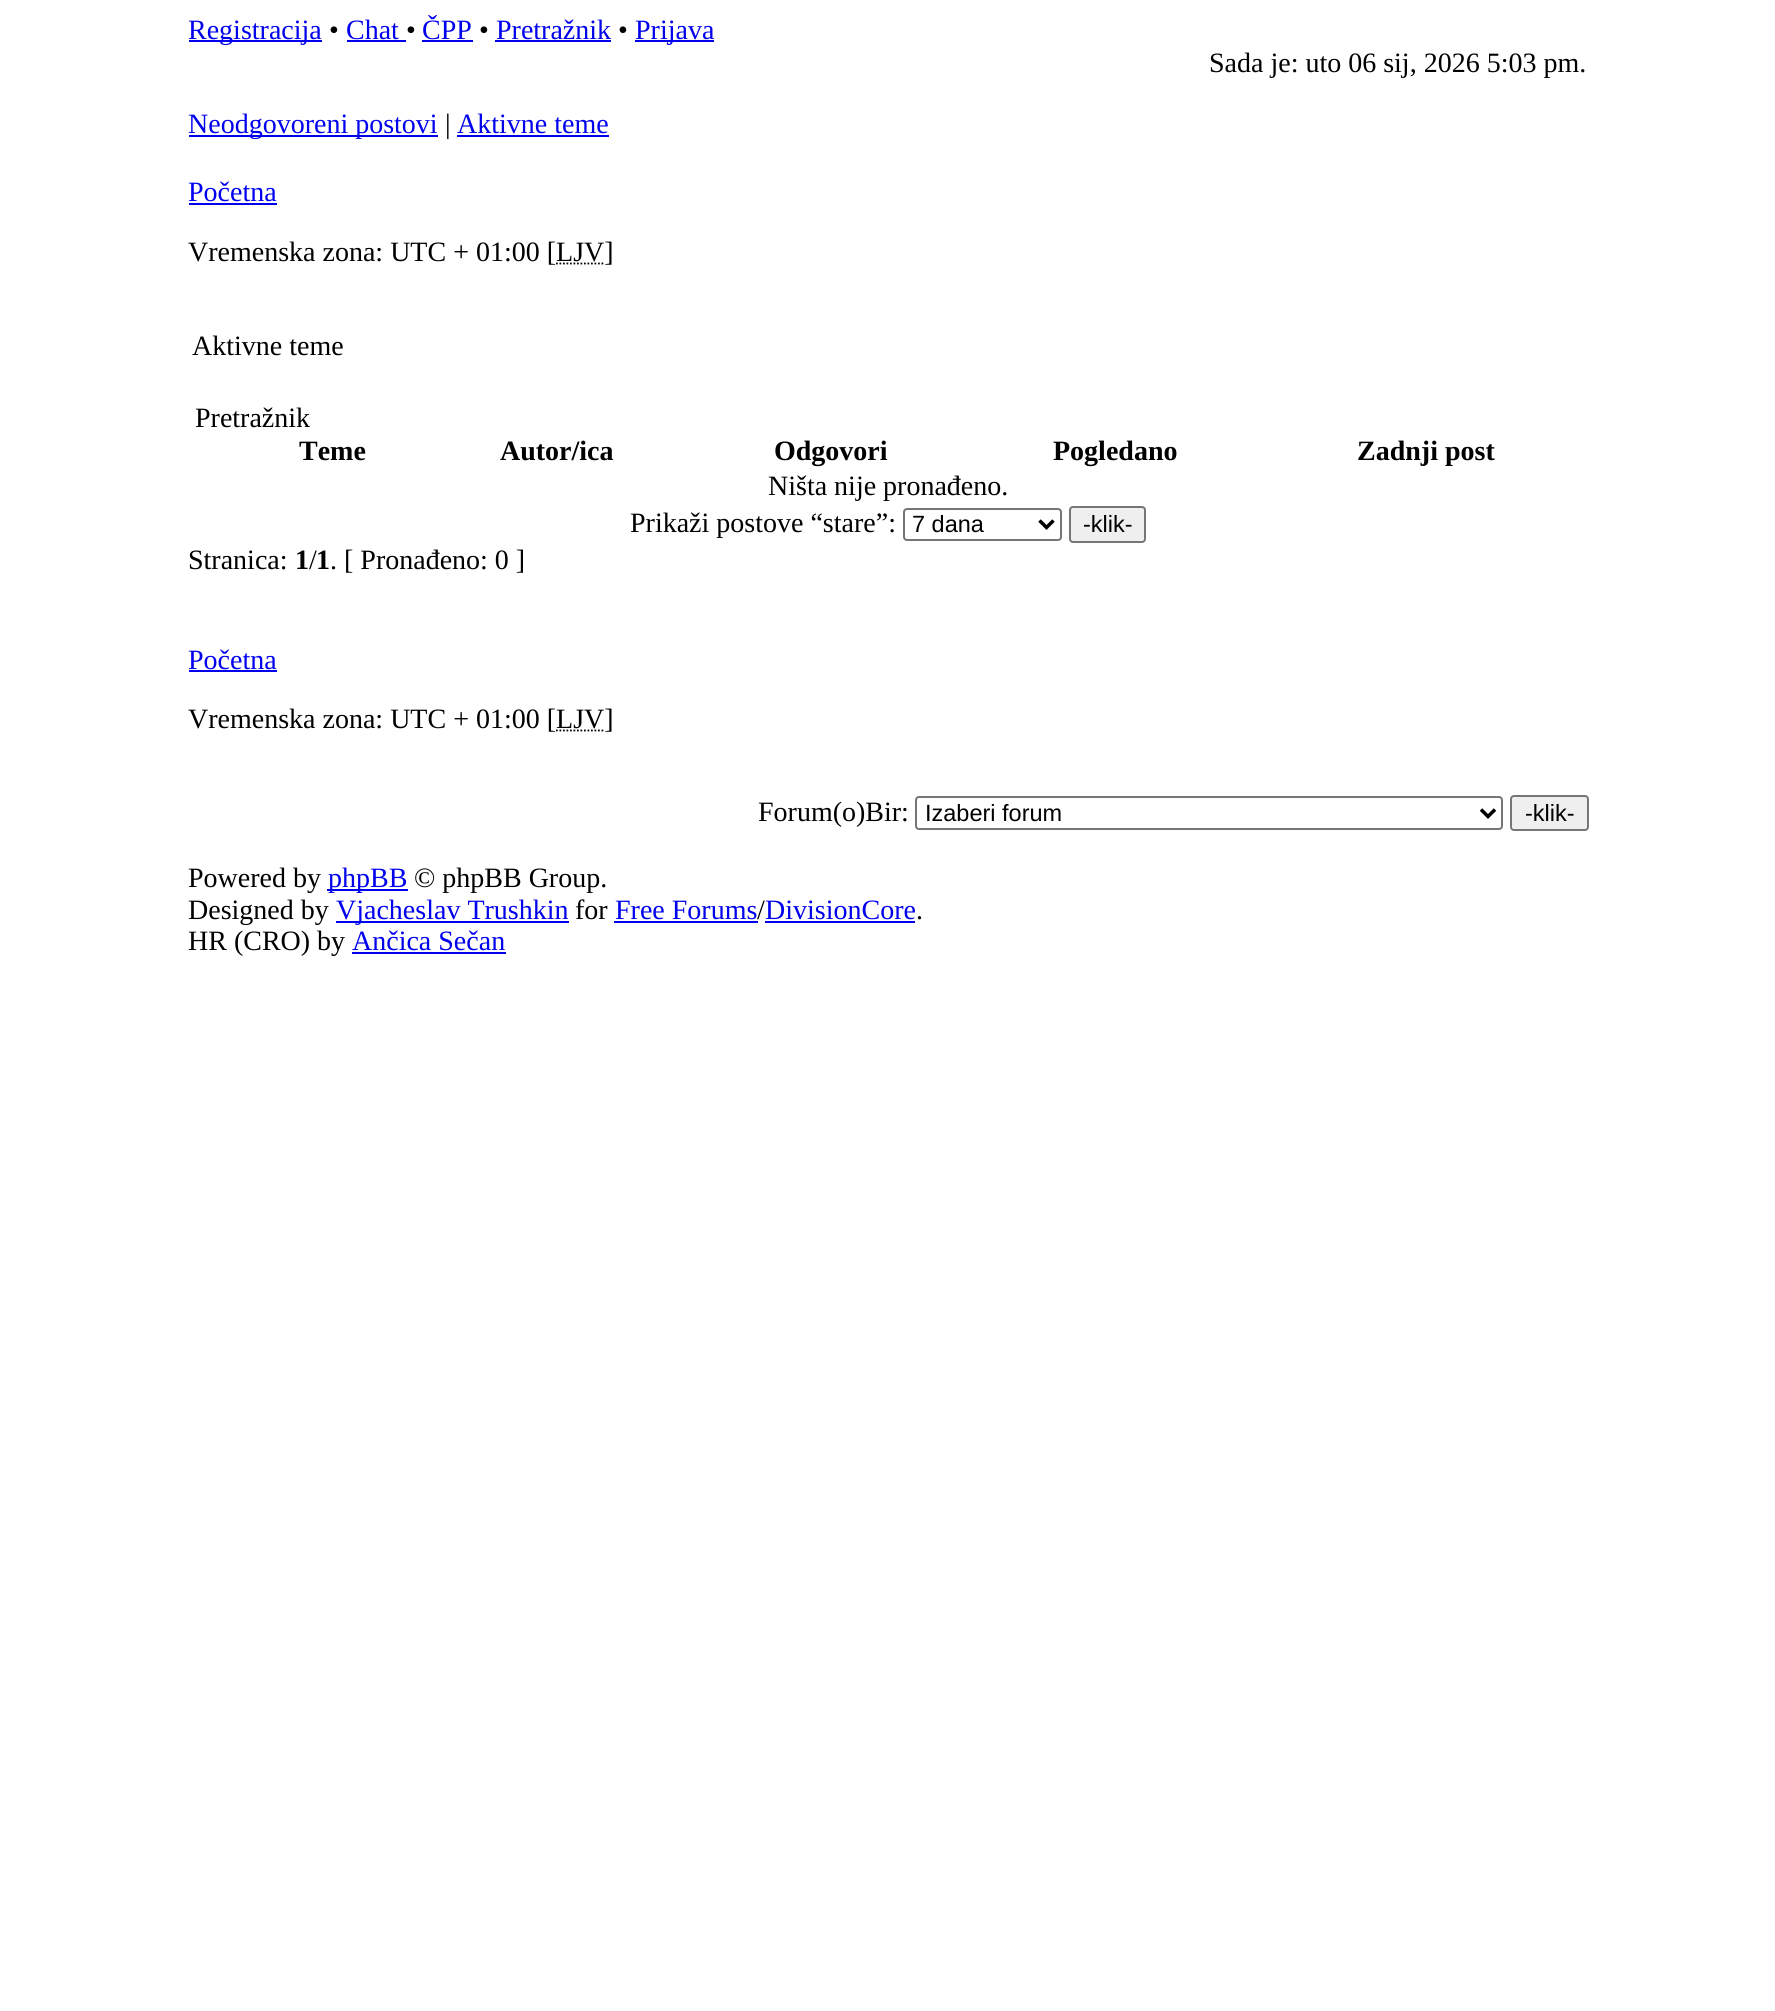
#include <cairo/cairo.h>
#include <math.h>
#include <stddef.h>

typedef struct { double x, y; const char *s; } line_t;
typedef struct { double x, y, w, h; unsigned color; } box_t;
static cairo_t *cr;

static void rgb(unsigned color)
{
	cairo_set_source_rgb(cr, (color >> 16) / 255.0, (color >> 8 & 255) / 255.0, (color & 255) / 255.0);
}

static void rrect(double x, double y, double w, double h, double r)
{
	cairo_new_sub_path(cr);
	cairo_arc(cr, x + w - r, y + h - r, r, 0, M_PI / 2);
	cairo_arc(cr, x + r, y + h - r, r, M_PI / 2, M_PI);
	cairo_arc(cr, x + r, y + r, r, M_PI, 1.5 * M_PI);
	cairo_arc(cr, x + w - r, y + r, r, 1.5 * M_PI, 2 * M_PI);
	cairo_close_path(cr);
}

int main(void) {
	cairo_surface_t *surface = cairo_image_surface_create(CAIRO_FORMAT_RGB24, 1775, 2011);
	cr = cairo_create(surface);
	cairo_font_options_t *options = cairo_font_options_create();
	cairo_font_options_set_hint_metrics(options, CAIRO_HINT_METRICS_OFF);
	cairo_font_options_set_hint_style(options, CAIRO_HINT_STYLE_NONE);
	cairo_set_font_options(cr, options);
	cairo_set_miter_limit(cr, 4);
	rgb(0xffffff);
	cairo_paint(cr);
	{
		static const box_t items[] = {
			{189, 40, 133, 2, 0x0000ee},
			{347, 40, 59, 2, 0x0000ee},
			{422, 40, 51, 2, 0x0000ee},
			{495, 40, 116, 2, 0x0000ee},
			{635, 40, 79, 2, 0x0000ee},
			{189, 135, 249, 2, 0x0000ee},
			{457, 135, 152, 2, 0x0000ee},
			{189, 203, 88, 2, 0x0000ee},
		};
		for (size_t i = 0; i < sizeof items / sizeof *items; i++) {
			rgb(items[i].color);
			cairo_rectangle(cr, items[i].x, items[i].y, items[i].w, items[i].h);
			cairo_fill(cr);
		}
	}
	cairo_new_path(cr);
	cairo_move_to(cr, 556, 263.5);
	cairo_line_to(cr, 604.5, 263.5);
	rgb(0x000000);
	cairo_set_line_width(cr, 1.8);
	cairo_set_dash(cr, (double[]){1.75, 1.75}, 2, 0);
	cairo_stroke(cr);
	rrect(904, 509, 157, 31, 3);
	rgb(0x767676);
	cairo_set_line_width(cr, 2);
	cairo_set_dash(cr, NULL, 0, 0);
	cairo_stroke(cr);
	cairo_new_path(cr);
	cairo_move_to(cr, 1039.5, 520.5);
	cairo_line_to(cr, 1046.5, 527.5);
	cairo_line_to(cr, 1053.5, 520.5);
	rgb(0x000000);
	cairo_set_line_width(cr, 3.5);
	cairo_stroke(cr);
	rgb(0xefefef);
	rrect(1070, 507, 75, 35, 3);
	cairo_fill_preserve(cr);
	rgb(0x767676);
	cairo_set_line_width(cr, 2);
	cairo_stroke(cr);
	rgb(0x0000ee);
	cairo_rectangle(cr, 189, 670, 88, 2);
	cairo_fill(cr);
	cairo_new_path(cr);
	cairo_move_to(cr, 556, 730.5);
	cairo_line_to(cr, 604.5, 730.5);
	rgb(0x000000);
	cairo_set_line_width(cr, 1.8);
	cairo_set_dash(cr, (double[]){1.75, 1.75}, 2, 0);
	cairo_stroke(cr);
	rrect(916, 797, 586, 32, 3);
	rgb(0x767676);
	cairo_set_line_width(cr, 2);
	cairo_set_dash(cr, NULL, 0, 0);
	cairo_stroke(cr);
	cairo_new_path(cr);
	cairo_move_to(cr, 1481, 809.5);
	cairo_line_to(cr, 1488, 816.5);
	cairo_line_to(cr, 1495, 809.5);
	rgb(0x000000);
	cairo_set_line_width(cr, 3.5);
	cairo_stroke(cr);
	rgb(0xefefef);
	rrect(1511, 796, 77, 34, 3);
	cairo_fill_preserve(cr);
	rgb(0x767676);
	cairo_set_line_width(cr, 2);
	cairo_stroke(cr);
	{
		static const box_t items[] = {
			{327, 889, 81, 2, 0x0000ee},
			{336, 921, 233, 2, 0x0000ee},
			{614, 921, 144, 2, 0x0000ee},
			{765, 921, 150, 2, 0x0000ee},
			{352, 952, 154, 2, 0x0000ee},
		};
		for (size_t i = 0; i < sizeof items / sizeof *items; i++) {
			rgb(items[i].color);
			cairo_rectangle(cr, items[i].x, items[i].y, items[i].w, items[i].h);
			cairo_fill(cr);
		}
	}
	cairo_select_font_face(cr, "Liberation Serif", CAIRO_FONT_SLANT_NORMAL, CAIRO_FONT_WEIGHT_NORMAL);
	cairo_set_font_size(cr, 28);
	cairo_move_to(cr, 188, 39);
	cairo_show_text(cr, "Registracija");
	rgb(0x000000);
	cairo_move_to(cr, 329, 39);
	cairo_show_text(cr, "•");
	rgb(0x0000ee);
	cairo_move_to(cr, 346, 39);
	cairo_show_text(cr, "Chat");
	rgb(0x000000);
	cairo_move_to(cr, 406, 39);
	cairo_show_text(cr, "•");
	rgb(0x0000ee);
	cairo_move_to(cr, 422, 39);
	cairo_show_text(cr, "ČPP");
	rgb(0x000000);
	cairo_move_to(cr, 479, 39);
	cairo_show_text(cr, "•");
	rgb(0x0000ee);
	cairo_move_to(cr, 496, 39);
	cairo_show_text(cr, "Pretražnik");
	rgb(0x000000);
	cairo_move_to(cr, 618, 39);
	cairo_show_text(cr, "•");
	rgb(0x0000ee);
	cairo_move_to(cr, 635, 39);
	cairo_show_text(cr, "Prijava");
	rgb(0x000000);
	cairo_move_to(cr, 1209, 72);
	cairo_show_text(cr, "Sada je: uto 06 sij, 2026 5:03 pm.");
	rgb(0x0000ee);
	cairo_move_to(cr, 188, 133);
	cairo_show_text(cr, "Neodgovoreni postovi");
	rgb(0x000000);
	cairo_move_to(cr, 445, 133);
	cairo_show_text(cr, "|");
	rgb(0x0000ee);
	cairo_move_to(cr, 457, 133);
	cairo_show_text(cr, "Aktivne teme");
	cairo_move_to(cr, 188, 201);
	cairo_show_text(cr, "Početna");
	rgb(0x000000);
	{
		static const line_t items[] = {
			{188, 261, "Vremenska zona: UTC + 01:00 [LJV]"},
			{192, 355, "Aktivne teme"},
			{195, 427, "Pretražnik"},
		};
		for (size_t i = 0; i < sizeof items / sizeof *items; i++) {
			cairo_move_to(cr, items[i].x, items[i].y);
			cairo_show_text(cr, items[i].s);
		}
	}
	cairo_select_font_face(cr, "Liberation Serif", CAIRO_FONT_SLANT_NORMAL, CAIRO_FONT_WEIGHT_BOLD);
	{
		static const line_t items[] = {
			{299, 460, "Teme"},
			{500, 460, "Autor/ica"},
			{774, 460, "Odgovori"},
			{1053, 460, "Pogledano"},
			{1357, 460, "Zadnji post"},
		};
		for (size_t i = 0; i < sizeof items / sizeof *items; i++) {
			cairo_move_to(cr, items[i].x, items[i].y);
			cairo_show_text(cr, items[i].s);
		}
	}
	cairo_select_font_face(cr, "Liberation Serif", CAIRO_FONT_SLANT_NORMAL, CAIRO_FONT_WEIGHT_NORMAL);
	cairo_move_to(cr, 768, 495);
	cairo_show_text(cr, "Ništa nije pronađeno.");
	cairo_move_to(cr, 630, 532);
	cairo_show_text(cr, "Prikaži postove “stare”:");
	cairo_select_font_face(cr, "Liberation Sans", CAIRO_FONT_SLANT_NORMAL, CAIRO_FONT_WEIGHT_NORMAL);
	cairo_set_font_size(cr, 23.5);
	cairo_move_to(cr, 912, 532);
	cairo_show_text(cr, "7 dana");
	cairo_move_to(cr, 1083, 532);
	cairo_show_text(cr, "-klik-");
	cairo_select_font_face(cr, "Liberation Serif", CAIRO_FONT_SLANT_NORMAL, CAIRO_FONT_WEIGHT_NORMAL);
	cairo_set_font_size(cr, 28);
	cairo_move_to(cr, 188, 569);
	cairo_show_text(cr, "Stranica:");
	cairo_select_font_face(cr, "Liberation Serif", CAIRO_FONT_SLANT_NORMAL, CAIRO_FONT_WEIGHT_BOLD);
	cairo_move_to(cr, 295, 569);
	cairo_show_text(cr, "1");
	cairo_select_font_face(cr, "Liberation Serif", CAIRO_FONT_SLANT_NORMAL, CAIRO_FONT_WEIGHT_NORMAL);
	cairo_move_to(cr, 309, 569);
	cairo_show_text(cr, "/");
	cairo_select_font_face(cr, "Liberation Serif", CAIRO_FONT_SLANT_NORMAL, CAIRO_FONT_WEIGHT_BOLD);
	cairo_move_to(cr, 316, 569);
	cairo_show_text(cr, "1");
	cairo_select_font_face(cr, "Liberation Serif", CAIRO_FONT_SLANT_NORMAL, CAIRO_FONT_WEIGHT_NORMAL);
	cairo_move_to(cr, 330, 569);
	cairo_show_text(cr, ". [ Pronađeno: 0 ]");
	rgb(0x0000ee);
	cairo_move_to(cr, 188, 669);
	cairo_show_text(cr, "Početna");
	rgb(0x000000);
	cairo_move_to(cr, 188, 728);
	cairo_show_text(cr, "Vremenska zona: UTC + 01:00 [LJV]");
	cairo_move_to(cr, 758, 821);
	cairo_show_text(cr, "Forum(o)Bir:");
	cairo_select_font_face(cr, "Liberation Sans", CAIRO_FONT_SLANT_NORMAL, CAIRO_FONT_WEIGHT_NORMAL);
	cairo_set_font_size(cr, 23.5);
	cairo_move_to(cr, 925, 821);
	cairo_show_text(cr, "Izaberi forum");
	cairo_move_to(cr, 1525, 821);
	cairo_show_text(cr, "-klik-");
	cairo_select_font_face(cr, "Liberation Serif", CAIRO_FONT_SLANT_NORMAL, CAIRO_FONT_WEIGHT_NORMAL);
	cairo_set_font_size(cr, 28);
	cairo_move_to(cr, 188, 887);
	cairo_show_text(cr, "Powered by");
	rgb(0x0000ee);
	cairo_move_to(cr, 328, 887);
	cairo_show_text(cr, "phpBB");
	rgb(0x000000);
	cairo_move_to(cr, 414, 887);
	cairo_show_text(cr, "© phpBB Group.");
	cairo_move_to(cr, 188, 919);
	cairo_show_text(cr, "Designed by");
	rgb(0x0000ee);
	cairo_move_to(cr, 336, 919);
	cairo_show_text(cr, "Vjacheslav Trushkin");
	rgb(0x000000);
	cairo_move_to(cr, 575, 919);
	cairo_show_text(cr, "for");
	rgb(0x0000ee);
	cairo_move_to(cr, 615, 919);
	cairo_show_text(cr, "Free Forums");
	rgb(0x000000);
	cairo_move_to(cr, 757, 919);
	cairo_show_text(cr, "/");
	rgb(0x0000ee);
	cairo_move_to(cr, 765, 919);
	cairo_show_text(cr, "DivisionCore");
	rgb(0x000000);
	cairo_move_to(cr, 916, 919);
	cairo_show_text(cr, ".");
	cairo_move_to(cr, 188, 950);
	cairo_show_text(cr, "HR (CRO) by");
	rgb(0x0000ee);
	cairo_move_to(cr, 352, 950);
	cairo_show_text(cr, "Ančica Sečan");
	cairo_surface_write_to_png(surface, "page.png");
	cairo_font_options_destroy(options);
	cairo_destroy(cr);
	cairo_surface_destroy(surface);
	return 0;
}
